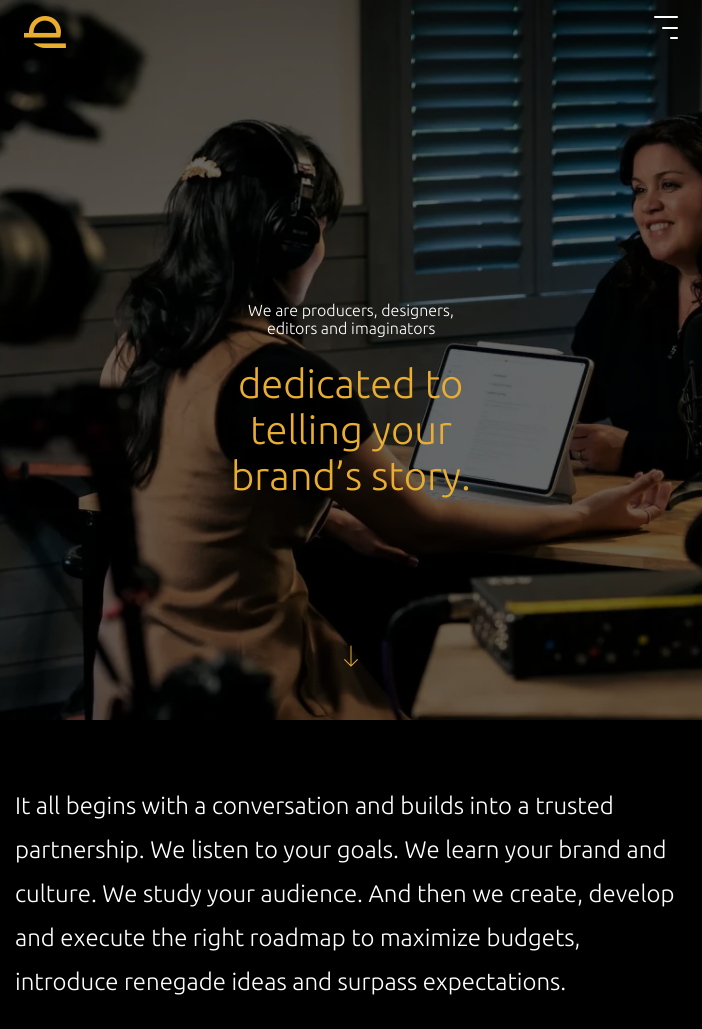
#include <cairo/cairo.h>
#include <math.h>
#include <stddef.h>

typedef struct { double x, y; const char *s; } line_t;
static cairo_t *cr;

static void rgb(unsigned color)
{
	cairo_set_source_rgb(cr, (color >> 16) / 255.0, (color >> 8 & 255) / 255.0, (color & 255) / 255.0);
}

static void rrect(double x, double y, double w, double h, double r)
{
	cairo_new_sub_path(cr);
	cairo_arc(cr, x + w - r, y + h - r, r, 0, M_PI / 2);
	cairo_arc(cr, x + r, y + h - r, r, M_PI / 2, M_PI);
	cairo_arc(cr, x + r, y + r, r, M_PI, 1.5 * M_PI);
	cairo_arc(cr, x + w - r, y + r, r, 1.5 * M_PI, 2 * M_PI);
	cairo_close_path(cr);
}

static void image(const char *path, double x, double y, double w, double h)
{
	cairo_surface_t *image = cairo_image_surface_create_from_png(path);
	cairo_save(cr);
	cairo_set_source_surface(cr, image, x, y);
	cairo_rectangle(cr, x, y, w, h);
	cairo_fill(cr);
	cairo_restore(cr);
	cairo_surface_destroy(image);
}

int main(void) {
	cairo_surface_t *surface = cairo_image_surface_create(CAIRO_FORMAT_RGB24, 702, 1029);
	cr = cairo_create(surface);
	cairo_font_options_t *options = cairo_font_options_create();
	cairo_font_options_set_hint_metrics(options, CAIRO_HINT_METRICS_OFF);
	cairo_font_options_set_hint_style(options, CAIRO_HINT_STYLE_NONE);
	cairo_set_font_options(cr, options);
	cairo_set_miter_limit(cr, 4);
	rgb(0x000000);
	cairo_paint(cr);
	image("img/2.png", 0, 0, 702, 720);
	image("img/1.png", 24, 16, 42, 32);
	rgb(0xffffff);
	rrect(654, 16, 24, 2, 1);
	cairo_fill(cr);
	rrect(662, 27, 16, 2, 1);
	cairo_fill(cr);
	rrect(670, 37, 8, 2, 1);
	cairo_fill(cr);
	image("img/3.png", 344, 645, 14, 22);
	cairo_select_font_face(cr, "Ubuntu Light", CAIRO_FONT_SLANT_NORMAL, CAIRO_FONT_WEIGHT_NORMAL);
	cairo_set_font_size(cr, 16);
	cairo_move_to(cr, 248, 316);
	cairo_show_text(cr, "We are producers, designers,");
	cairo_move_to(cr, 267, 334);
	cairo_show_text(cr, "editors and imaginators");
	cairo_set_font_size(cr, 40);
	rgb(0xe9ae30);
	{
		static const line_t items[] = {
			{238, 398, "dedicated to"},
			{250, 444, "telling your"},
			{231, 490, "brand’s story."},
		};
		for (size_t i = 0; i < sizeof items / sizeof *items; i++) {
			cairo_move_to(cr, items[i].x, items[i].y);
			cairo_show_text(cr, items[i].s);
		}
	}
	cairo_set_font_size(cr, 24);
	rgb(0xffffff);
	{
		static const line_t items[] = {
			{15, 814, "It all begins with a conversation and builds into a trusted"},
			{15, 858, "partnership. We listen to your goals. We learn your brand and"},
			{15, 902, "culture. We study your audience. And then we create, develop"},
			{15, 946, "and execute the right roadmap to maximize budgets,"},
			{15, 990, "introduce renegade ideas and surpass expectations."},
		};
		for (size_t i = 0; i < sizeof items / sizeof *items; i++) {
			cairo_move_to(cr, items[i].x, items[i].y);
			cairo_show_text(cr, items[i].s);
		}
	}
	cairo_surface_write_to_png(surface, "page.png");
	cairo_font_options_destroy(options);
	cairo_destroy(cr);
	cairo_surface_destroy(surface);
	return 0;
}
